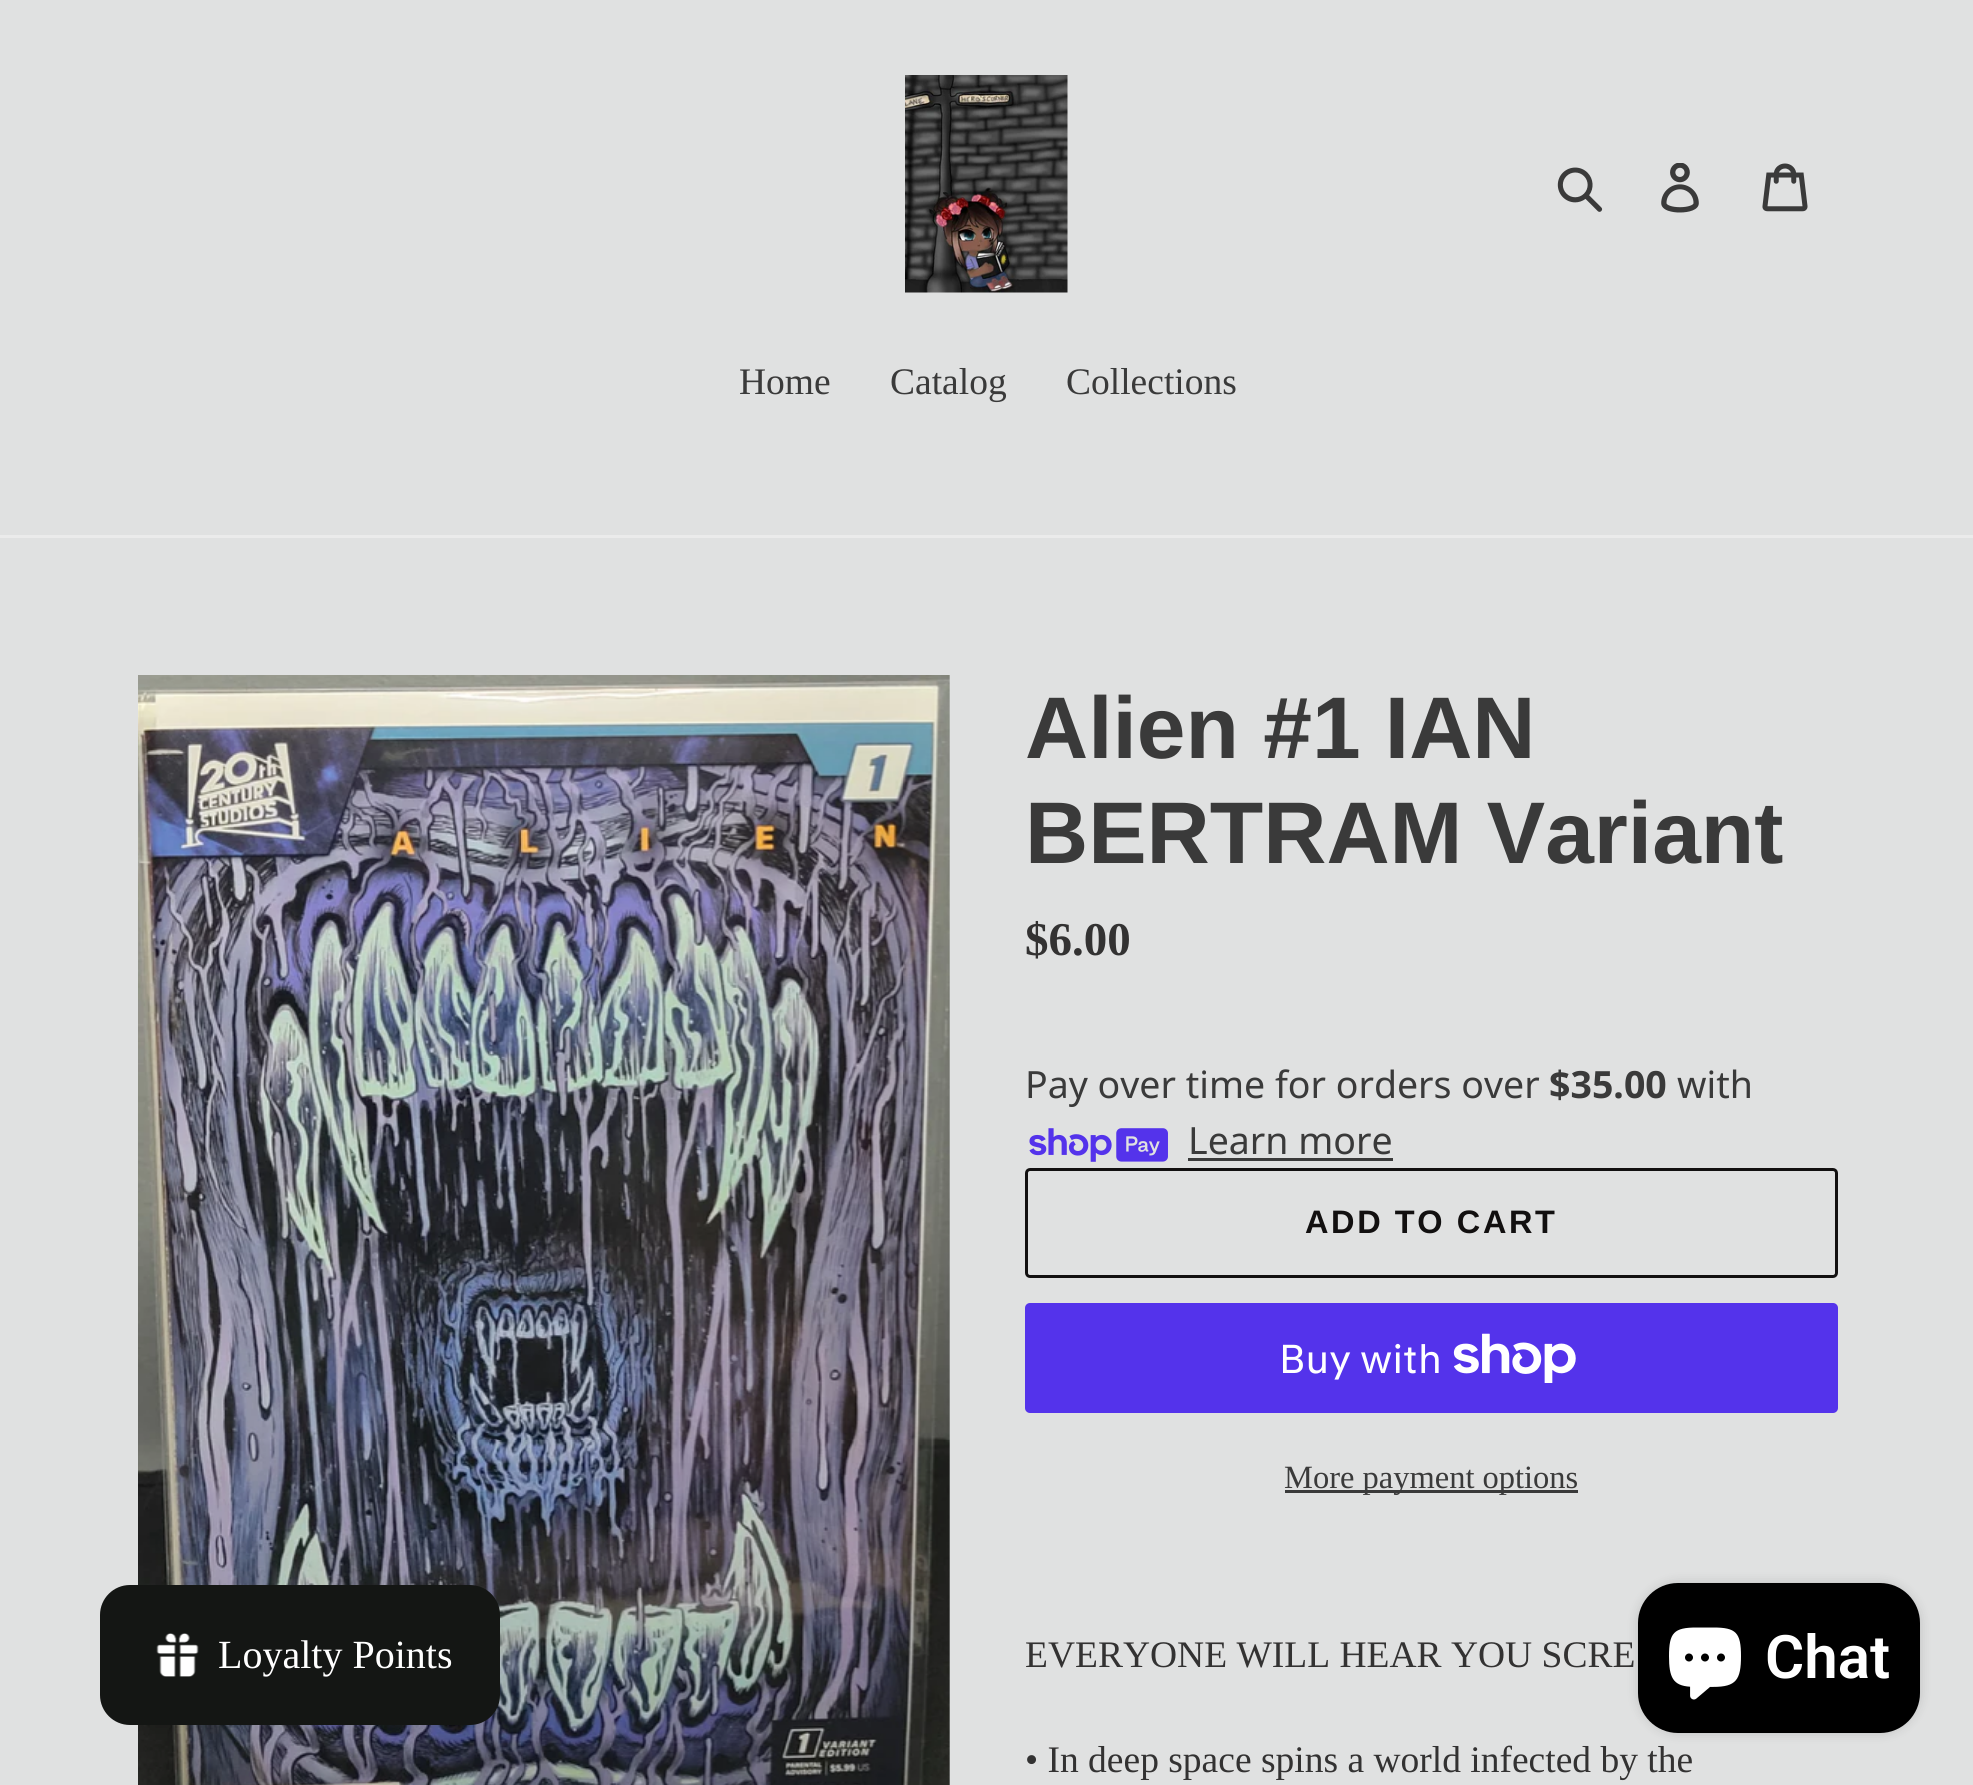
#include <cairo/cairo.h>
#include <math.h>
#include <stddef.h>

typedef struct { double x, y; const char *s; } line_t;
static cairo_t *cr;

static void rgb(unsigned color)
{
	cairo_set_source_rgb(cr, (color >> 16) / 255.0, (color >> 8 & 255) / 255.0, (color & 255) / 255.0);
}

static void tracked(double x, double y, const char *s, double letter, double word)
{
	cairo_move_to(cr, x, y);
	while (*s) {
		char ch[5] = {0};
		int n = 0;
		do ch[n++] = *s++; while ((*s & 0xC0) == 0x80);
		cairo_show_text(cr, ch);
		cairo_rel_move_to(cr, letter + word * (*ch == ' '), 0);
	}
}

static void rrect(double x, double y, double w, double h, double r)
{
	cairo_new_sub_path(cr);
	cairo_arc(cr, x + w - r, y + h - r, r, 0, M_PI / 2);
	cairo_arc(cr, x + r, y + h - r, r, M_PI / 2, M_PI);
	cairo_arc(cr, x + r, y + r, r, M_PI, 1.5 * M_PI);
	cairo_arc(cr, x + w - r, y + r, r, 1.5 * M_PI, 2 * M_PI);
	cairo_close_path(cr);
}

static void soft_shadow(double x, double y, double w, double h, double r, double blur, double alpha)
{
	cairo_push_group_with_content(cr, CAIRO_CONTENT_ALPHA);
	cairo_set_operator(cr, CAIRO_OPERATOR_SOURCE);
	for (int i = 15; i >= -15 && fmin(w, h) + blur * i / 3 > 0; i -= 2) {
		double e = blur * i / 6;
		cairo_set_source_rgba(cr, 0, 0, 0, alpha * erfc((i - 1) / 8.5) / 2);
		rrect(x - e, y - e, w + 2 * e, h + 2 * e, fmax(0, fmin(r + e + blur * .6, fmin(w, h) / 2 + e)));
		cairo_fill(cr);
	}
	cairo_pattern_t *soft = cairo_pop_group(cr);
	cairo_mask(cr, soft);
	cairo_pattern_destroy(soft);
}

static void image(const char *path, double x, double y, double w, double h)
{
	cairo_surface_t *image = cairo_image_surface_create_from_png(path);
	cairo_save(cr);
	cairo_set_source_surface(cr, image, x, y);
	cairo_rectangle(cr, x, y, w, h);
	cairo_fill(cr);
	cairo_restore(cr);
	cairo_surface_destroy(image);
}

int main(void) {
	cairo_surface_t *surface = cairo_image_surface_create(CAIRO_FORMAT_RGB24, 1973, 1785);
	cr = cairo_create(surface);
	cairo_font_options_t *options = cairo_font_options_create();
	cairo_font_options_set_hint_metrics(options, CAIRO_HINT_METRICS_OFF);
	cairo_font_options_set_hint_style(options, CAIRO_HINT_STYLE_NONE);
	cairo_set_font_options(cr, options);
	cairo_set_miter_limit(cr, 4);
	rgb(0xe0e1e1);
	cairo_paint(cr);
	image("img/1.png", 905, 75, 163, 218);
	image("img/2.png", 1557, 167, 46, 45);
	image("img/3.png", 1661, 163, 38, 50);
	image("img/4.png", 1762, 163, 46, 49);
	rgb(0xebebeb);
	cairo_rectangle(cr, 0, 535, 1973, 3);
	cairo_fill(cr);
	image("img/6.png", 138, 675, 812, 1110);
	rgb(0x141614);
	rrect(100, 1585, 400, 140, 30);
	cairo_fill(cr);
	image("img/5.png", 156, 1633, 43, 44);
	image("img/7.png", 1029, 1128, 139, 34);
	rgb(0x3a3a3a);
	cairo_rectangle(cr, 1188, 1158, 205, 3);
	cairo_fill(cr);
	rrect(1026.5, 1169.5, 810, 107, 3.5);
	rgb(0x121010);
	cairo_set_line_width(cr, 3);
	cairo_stroke(cr);
	rgb(0x5433eb);
	rrect(1025, 1303, 813, 110, 5);
	cairo_fill(cr);
	image("img/8.png", 1453, 1333, 123, 50);
	rgb(0x3a3a3a);
	cairo_rectangle(cr, 1285, 1490, 293, 3);
	cairo_fill(cr);
	rgb(0x000000);
	soft_shadow(1638, 1583, 282, 150, 40, 6, 0.15);
	rgb(0x000000);
	rrect(1638, 1583, 282, 150, 40);
	cairo_fill(cr);
	image("img/9.png", 1669, 1627, 72, 73);
	cairo_select_font_face(cr, "Liberation Serif", CAIRO_FONT_SLANT_NORMAL, CAIRO_FONT_WEIGHT_NORMAL);
	cairo_set_font_size(cr, 37.5);
	rgb(0x3a3a3a);
	{
		static const line_t items[] = {
			{739, 394, "Home"},
			{890, 394, "Catalog"},
			{1066, 394, "Collections"},
		};
		for (size_t i = 0; i < sizeof items / sizeof *items; i++) {
			cairo_move_to(cr, items[i].x, items[i].y);
			cairo_show_text(cr, items[i].s);
		}
	}
	cairo_set_font_size(cr, 40);
	rgb(0xffffff);
	cairo_move_to(cr, 218, 1668);
	cairo_show_text(cr, "Loyalty Points");
	cairo_select_font_face(cr, "Liberation Sans", CAIRO_FONT_SLANT_NORMAL, CAIRO_FONT_WEIGHT_BOLD);
	cairo_set_font_size(cr, 87.5);
	rgb(0x3a3a3a);
	cairo_move_to(cr, 1025, 758);
	cairo_show_text(cr, "Alien #1 IAN");
	cairo_move_to(cr, 1025, 863);
	cairo_show_text(cr, "BERTRAM Variant");
	cairo_select_font_face(cr, "Liberation Serif", CAIRO_FONT_SLANT_NORMAL, CAIRO_FONT_WEIGHT_BOLD);
	cairo_set_font_size(cr, 47);
	rgb(0x333232);
	cairo_move_to(cr, 1025, 955);
	cairo_show_text(cr, "$6.00");
	cairo_select_font_face(cr, "Noto Sans", CAIRO_FONT_SLANT_NORMAL, CAIRO_FONT_WEIGHT_NORMAL);
	cairo_set_font_size(cr, 37.5);
	rgb(0x3a3a3a);
	cairo_move_to(cr, 1025, 1098);
	cairo_show_text(cr, "Pay over time for orders over");
	cairo_select_font_face(cr, "Noto Sans", CAIRO_FONT_SLANT_NORMAL, CAIRO_FONT_WEIGHT_BOLD);
	cairo_move_to(cr, 1549, 1098);
	cairo_show_text(cr, "$35.00");
	cairo_select_font_face(cr, "Noto Sans", CAIRO_FONT_SLANT_NORMAL, CAIRO_FONT_WEIGHT_NORMAL);
	cairo_move_to(cr, 1677, 1098);
	cairo_show_text(cr, "with");
	cairo_move_to(cr, 1188, 1154);
	cairo_show_text(cr, "Learn more");
	cairo_select_font_face(cr, "Liberation Sans", CAIRO_FONT_SLANT_NORMAL, CAIRO_FONT_WEIGHT_BOLD);
	cairo_set_font_size(cr, 32.5);
	rgb(0x121010);
	tracked(1305, 1233, "ADD TO CART", 2.6, 0);
	cairo_select_font_face(cr, "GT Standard", CAIRO_FONT_SLANT_NORMAL, CAIRO_FONT_WEIGHT_NORMAL);
	cairo_set_font_size(cr, 40);
	rgb(0xffffff);
	cairo_move_to(cr, 1279, 1373);
	cairo_show_text(cr, "Buy with");
	cairo_select_font_face(cr, "Liberation Serif", CAIRO_FONT_SLANT_NORMAL, CAIRO_FONT_WEIGHT_NORMAL);
	cairo_set_font_size(cr, 32.5);
	rgb(0x3a3a3a);
	cairo_move_to(cr, 1284, 1488);
	cairo_show_text(cr, "More payment options");
	cairo_set_font_size(cr, 37.5);
	rgb(0x333232);
	cairo_move_to(cr, 1025, 1667);
	cairo_show_text(cr, "EVERYONE WILL HEAR YOU SCRE");
	cairo_move_to(cr, 1025, 1772);
	cairo_show_text(cr, "• In deep space spins a world infected by the");
	cairo_select_font_face(cr, "Roboto SemiBold", CAIRO_FONT_SLANT_NORMAL, CAIRO_FONT_WEIGHT_NORMAL);
	cairo_set_font_size(cr, 60);
	rgb(0xffffff);
	cairo_move_to(cr, 1765, 1678);
	cairo_show_text(cr, "Chat");
	cairo_surface_write_to_png(surface, "page.png");
	cairo_font_options_destroy(options);
	cairo_destroy(cr);
	cairo_surface_destroy(surface);
	return 0;
}
